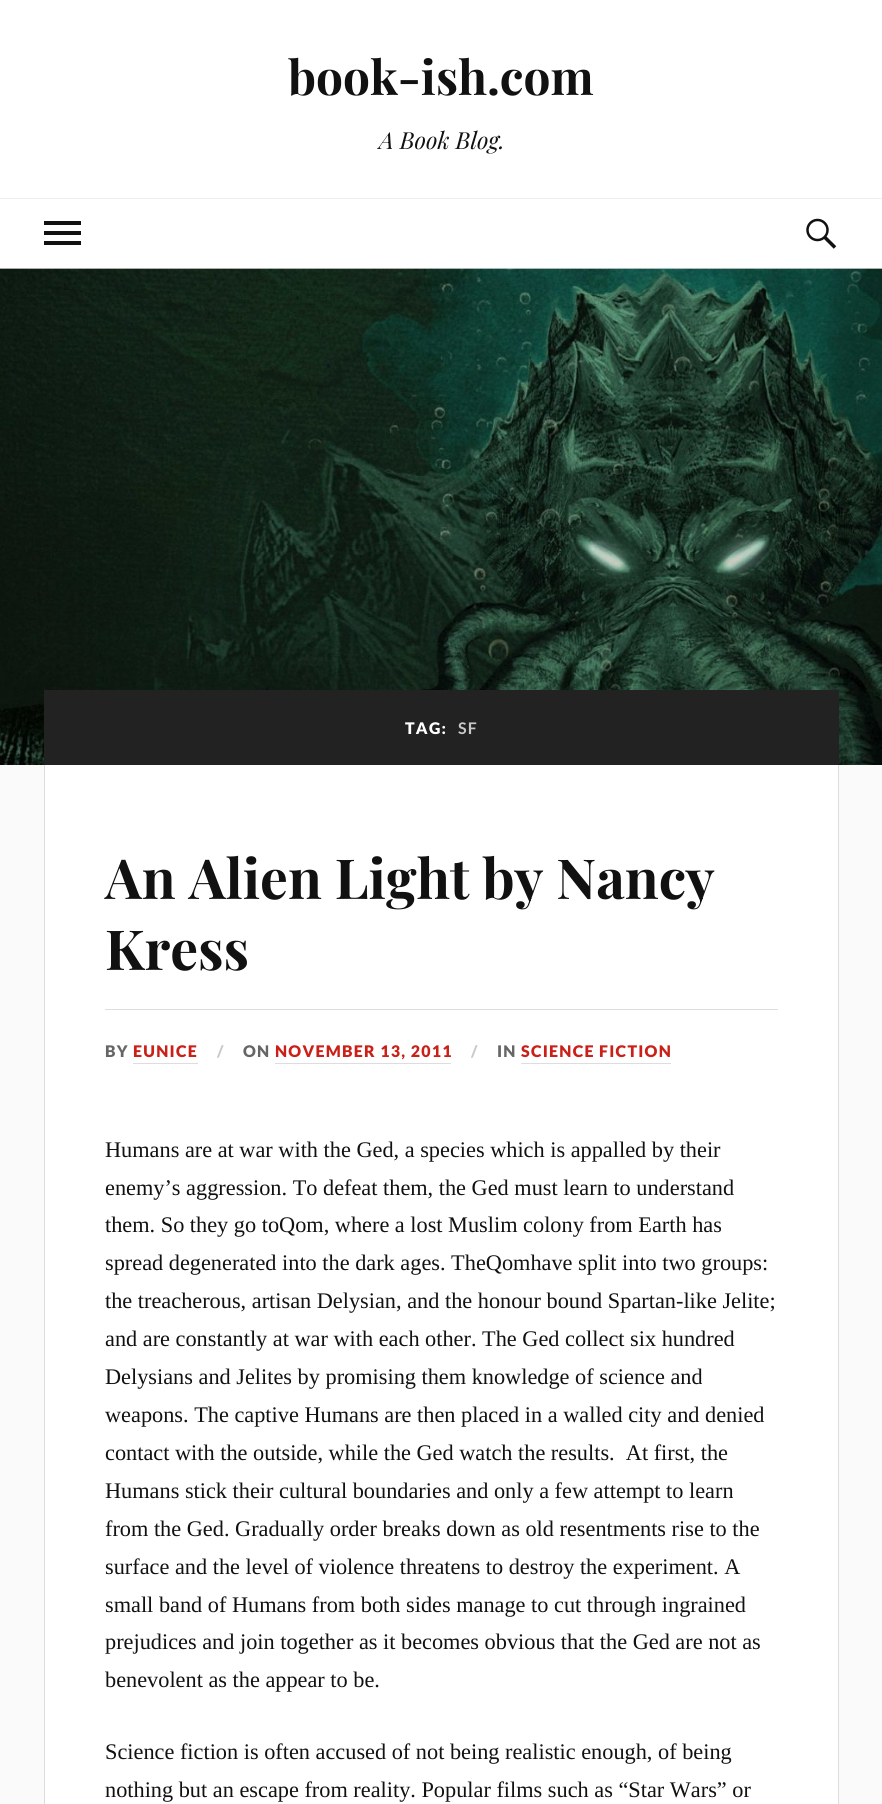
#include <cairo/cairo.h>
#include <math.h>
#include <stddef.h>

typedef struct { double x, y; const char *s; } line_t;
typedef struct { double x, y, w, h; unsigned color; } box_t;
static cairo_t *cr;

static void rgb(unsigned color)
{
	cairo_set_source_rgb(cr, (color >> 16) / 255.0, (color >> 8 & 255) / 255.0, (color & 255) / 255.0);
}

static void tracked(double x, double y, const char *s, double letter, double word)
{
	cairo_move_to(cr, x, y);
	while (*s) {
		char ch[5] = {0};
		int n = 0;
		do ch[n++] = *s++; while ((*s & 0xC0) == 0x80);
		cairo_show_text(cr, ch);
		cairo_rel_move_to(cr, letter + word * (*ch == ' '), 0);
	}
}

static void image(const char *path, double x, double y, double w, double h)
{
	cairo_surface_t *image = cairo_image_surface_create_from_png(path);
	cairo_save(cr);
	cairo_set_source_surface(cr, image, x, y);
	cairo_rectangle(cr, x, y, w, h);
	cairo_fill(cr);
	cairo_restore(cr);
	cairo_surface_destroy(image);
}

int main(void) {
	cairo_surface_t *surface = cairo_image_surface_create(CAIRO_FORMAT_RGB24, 882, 1804);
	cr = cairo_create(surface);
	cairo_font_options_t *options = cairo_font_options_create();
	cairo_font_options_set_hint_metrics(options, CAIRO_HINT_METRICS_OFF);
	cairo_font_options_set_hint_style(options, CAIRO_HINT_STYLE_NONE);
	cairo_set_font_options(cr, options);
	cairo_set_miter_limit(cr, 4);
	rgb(0xfafafa);
	cairo_paint(cr);
	{
		static const box_t items[] = {
			{0, 0, 882, 198, 0xffffff},
			{0, 199, 882, 69, 0xffffff},
			{0, 198, 882, 1, 0xeeeeee},
			{44, 221, 37, 4, 0x111111},
			{44, 231, 37, 4, 0x111111},
			{44, 241, 37, 4, 0x111111},
		};
		for (size_t i = 0; i < sizeof items / sizeof *items; i++) {
			rgb(items[i].color);
			cairo_rectangle(cr, items[i].x, items[i].y, items[i].w, items[i].h);
			cairo_fill(cr);
		}
	}
	image("img/1.png", 806, 218, 31, 31);
	rgb(0xdddddd);
	cairo_rectangle(cr, 0, 268, 882, 1);
	cairo_fill(cr);
	image("img/2.png", 0, 268, 882, 497);
	{
		static const box_t items[] = {
			{44, 690, 795, 75, 0x222222},
			{45, 765, 793, 1039, 0xffffff},
			{838, 765, 1, 1039, 0xdddddd},
			{44, 765, 1, 1039, 0xdddddd},
			{105, 1009, 673, 1, 0xdddddd},
			{133, 1063, 65, 1, 0xdddddd},
			{275, 1063, 176, 1, 0xdddddd},
			{521, 1063, 150, 1, 0xdddddd},
		};
		for (size_t i = 0; i < sizeof items / sizeof *items; i++) {
			rgb(items[i].color);
			cairo_rectangle(cr, items[i].x, items[i].y, items[i].w, items[i].h);
			cairo_fill(cr);
		}
	}
	cairo_select_font_face(cr, "Playfair Display", CAIRO_FONT_SLANT_NORMAL, CAIRO_FONT_WEIGHT_BOLD);
	cairo_set_font_size(cr, 47.75);
	rgb(0x111111);
	cairo_move_to(cr, 288, 95);
	cairo_show_text(cr, "book-ish.com");
	cairo_select_font_face(cr, "Playfair Display", CAIRO_FONT_SLANT_ITALIC, CAIRO_FONT_WEIGHT_NORMAL);
	cairo_set_font_size(cr, 23.5);
	cairo_move_to(cr, 379, 149);
	cairo_show_text(cr, "A Book Blog.");
	cairo_select_font_face(cr, "Lato Black", CAIRO_FONT_SLANT_NORMAL, CAIRO_FONT_WEIGHT_NORMAL);
	cairo_set_font_size(cr, 16);
	rgb(0xffffff);
	tracked(405, 734, "TAG:", 1.25, 0);
	cairo_select_font_face(cr, "Lato", CAIRO_FONT_SLANT_NORMAL, CAIRO_FONT_WEIGHT_BOLD);
	rgb(0xc8c8c8);
	tracked(458, 734, "SF", 1.25, 0);
	cairo_select_font_face(cr, "Playfair Display", CAIRO_FONT_SLANT_NORMAL, CAIRO_FONT_WEIGHT_BOLD);
	cairo_set_font_size(cr, 55.25);
	rgb(0x111111);
	cairo_move_to(cr, 105, 899);
	cairo_show_text(cr, "An Alien Light by Nancy");
	cairo_move_to(cr, 105, 970);
	cairo_show_text(cr, "Kress");
	cairo_select_font_face(cr, "Lato Black", CAIRO_FONT_SLANT_NORMAL, CAIRO_FONT_WEIGHT_NORMAL);
	cairo_set_font_size(cr, 16);
	rgb(0x666666);
	tracked(105, 1057, "BY", 1.25, 0);
	rgb(0xca2017);
	tracked(133, 1057, "EUNICE", 1.25, 0);
	rgb(0xc8c8c8);
	tracked(217, 1057, "/", 1.25, 0);
	rgb(0x666666);
	tracked(243, 1057, "ON", 1.25, 0);
	rgb(0xca2017);
	tracked(275, 1057, "NOVEMBER 13, 2011", 1.25, 0);
	rgb(0xc8c8c8);
	tracked(471, 1057, "/", 1.25, 0);
	rgb(0x666666);
	tracked(497, 1057, "IN", 1.25, 0);
	rgb(0xca2017);
	tracked(521, 1057, "SCIENCE FICTION", 1.25, 0);
	cairo_select_font_face(cr, "Liberation Serif", CAIRO_FONT_SLANT_NORMAL, CAIRO_FONT_WEIGHT_NORMAL);
	cairo_set_font_size(cr, 22.3);
	rgb(0x111111);
	{
		static const line_t items[] = {
			{105, 1157, "Humans are at war with the Ged, a species which is appalled by their"},
			{105, 1195, "enemy’s aggression. To defeat them, the Ged must learn to understand"},
			{105, 1232, "them. So they go toQom, where a lost Muslim colony from Earth has"},
			{105, 1270, "spread degenerated into the dark ages. TheQomhave split into two groups:"},
			{105, 1308, "the treacherous, artisan Delysian, and the honour bound Spartan-like Jelite;"},
			{105, 1346, "and are constantly at war with each other. The Ged collect six hundred"},
			{105, 1384, "Delysians and Jelites by promising them knowledge of science and"},
			{105, 1422, "weapons. The captive Humans are then placed in a walled city and denied"},
			{105, 1460, "contact with the outside, while the Ged watch the results.  At first, the"},
			{105, 1498, "Humans stick their cultural boundaries and only a few attempt to learn"},
			{105, 1536, "from the Ged. Gradually order breaks down as old resentments rise to the"},
			{105, 1574, "surface and the level of violence threatens to destroy the experiment. A"},
			{105, 1612, "small band of Humans from both sides manage to cut through ingrained"},
			{105, 1649, "prejudices and join together as it becomes obvious that the Ged are not as"},
			{105, 1687, "benevolent as the appear to be."},
			{105, 1759, "Science fiction is often accused of not being realistic enough, of being"},
			{105, 1797, "nothing but an escape from reality. Popular films such as “Star Wars” or"},
		};
		for (size_t i = 0; i < sizeof items / sizeof *items; i++) {
			cairo_move_to(cr, items[i].x, items[i].y);
			cairo_show_text(cr, items[i].s);
		}
	}
	cairo_surface_write_to_png(surface, "page.png");
	cairo_font_options_destroy(options);
	cairo_destroy(cr);
	cairo_surface_destroy(surface);
	return 0;
}
